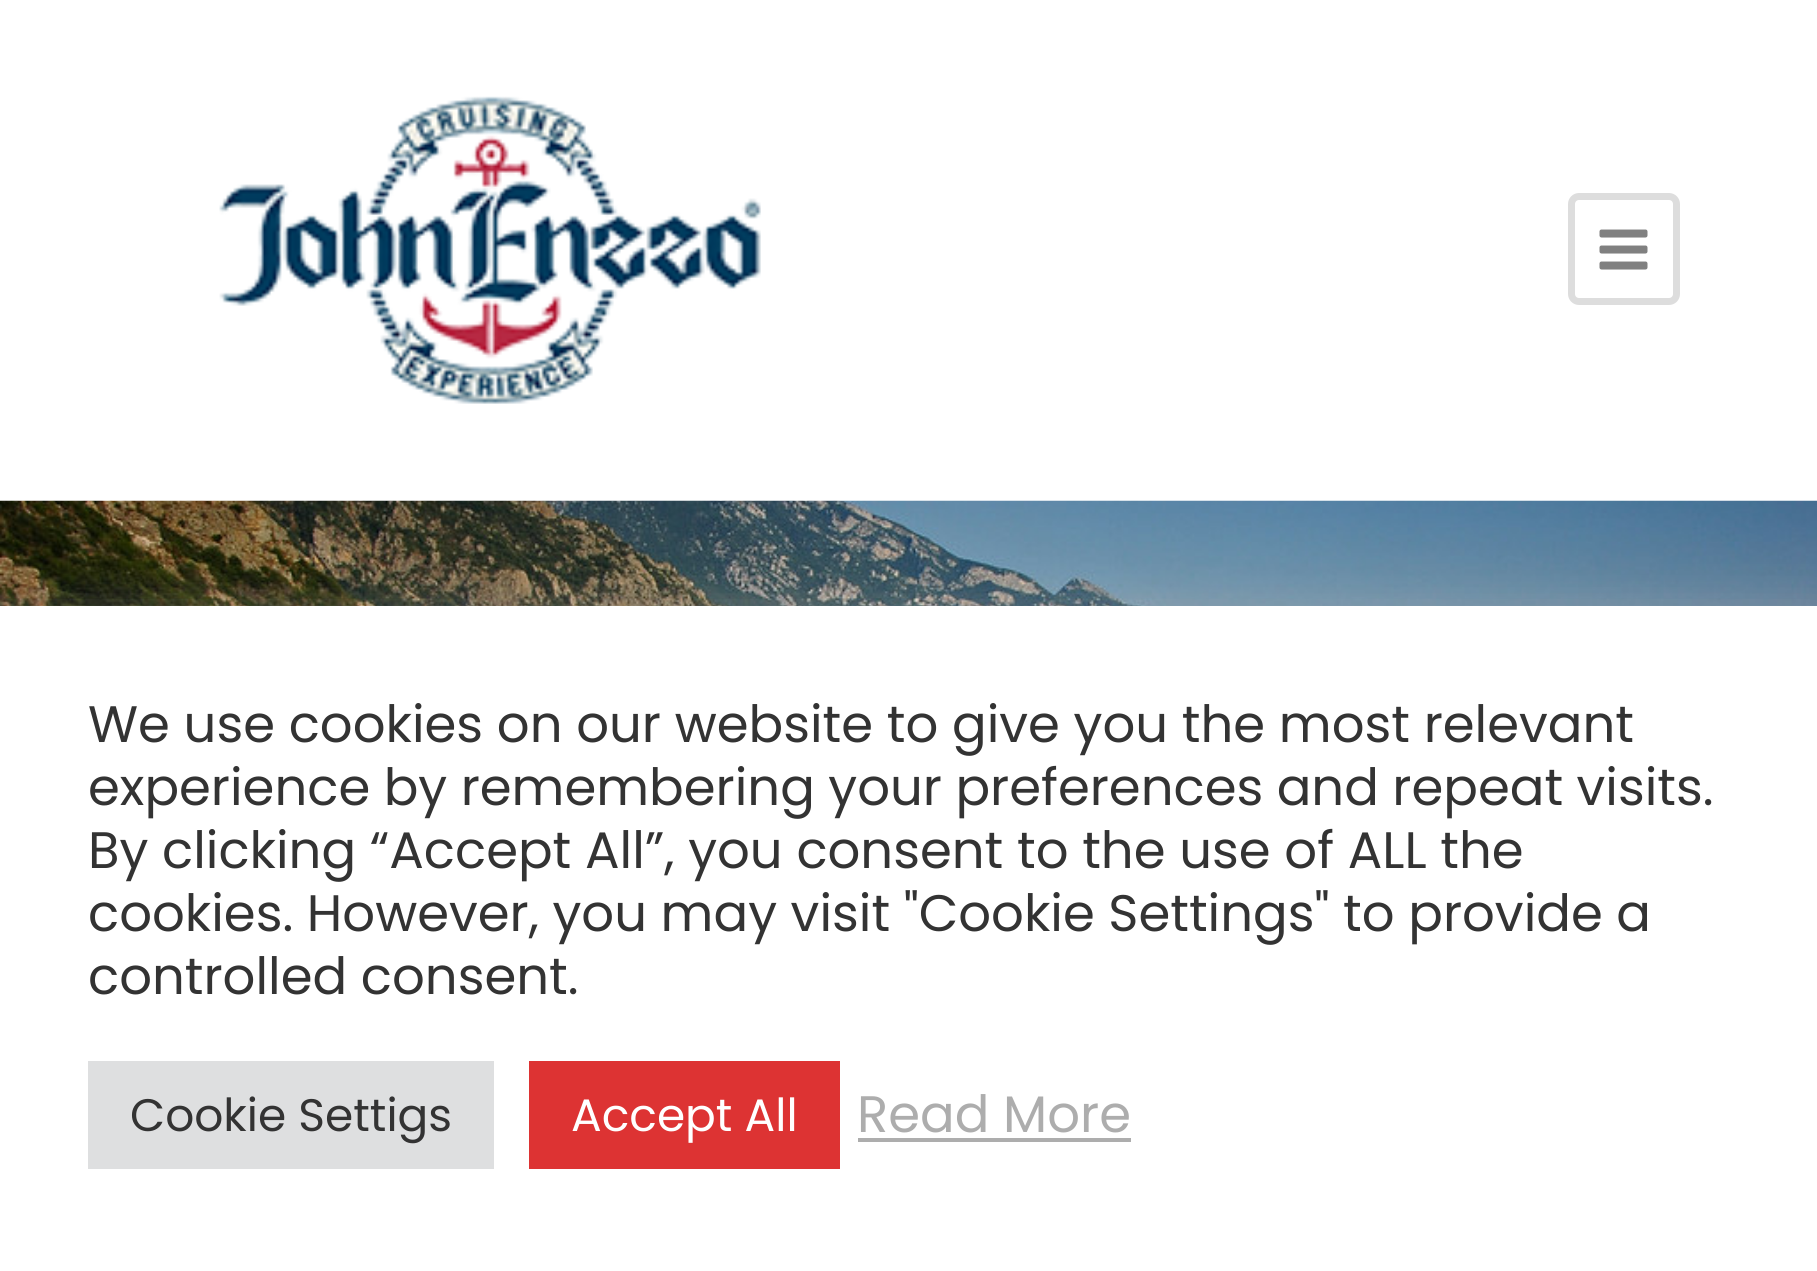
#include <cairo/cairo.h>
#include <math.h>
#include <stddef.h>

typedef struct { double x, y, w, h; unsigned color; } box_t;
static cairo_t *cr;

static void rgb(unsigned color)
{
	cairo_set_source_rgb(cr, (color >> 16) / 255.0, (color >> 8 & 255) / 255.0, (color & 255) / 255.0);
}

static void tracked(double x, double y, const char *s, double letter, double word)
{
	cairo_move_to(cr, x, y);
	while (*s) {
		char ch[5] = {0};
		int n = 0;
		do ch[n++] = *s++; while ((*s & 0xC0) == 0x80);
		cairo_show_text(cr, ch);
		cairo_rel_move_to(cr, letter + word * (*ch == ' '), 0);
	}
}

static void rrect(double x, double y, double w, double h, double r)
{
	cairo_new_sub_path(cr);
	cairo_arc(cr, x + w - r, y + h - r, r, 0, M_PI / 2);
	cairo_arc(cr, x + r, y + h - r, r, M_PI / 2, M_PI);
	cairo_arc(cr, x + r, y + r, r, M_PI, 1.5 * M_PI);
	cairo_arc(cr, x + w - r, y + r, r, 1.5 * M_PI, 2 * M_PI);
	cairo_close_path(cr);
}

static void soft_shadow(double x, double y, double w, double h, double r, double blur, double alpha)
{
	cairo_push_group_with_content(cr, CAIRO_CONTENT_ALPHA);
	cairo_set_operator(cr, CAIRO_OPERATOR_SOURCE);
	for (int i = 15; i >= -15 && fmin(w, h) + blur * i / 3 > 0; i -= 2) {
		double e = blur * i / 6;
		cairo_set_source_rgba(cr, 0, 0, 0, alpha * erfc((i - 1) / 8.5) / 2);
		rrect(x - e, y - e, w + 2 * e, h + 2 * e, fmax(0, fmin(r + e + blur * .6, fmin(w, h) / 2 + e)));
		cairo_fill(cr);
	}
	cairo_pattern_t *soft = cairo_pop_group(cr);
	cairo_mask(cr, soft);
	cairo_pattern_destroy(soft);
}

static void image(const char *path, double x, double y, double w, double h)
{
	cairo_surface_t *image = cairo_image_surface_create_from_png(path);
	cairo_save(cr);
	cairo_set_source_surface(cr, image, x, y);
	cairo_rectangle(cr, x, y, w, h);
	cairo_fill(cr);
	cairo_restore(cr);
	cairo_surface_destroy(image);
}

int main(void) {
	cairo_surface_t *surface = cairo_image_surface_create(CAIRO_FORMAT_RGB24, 1817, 1271);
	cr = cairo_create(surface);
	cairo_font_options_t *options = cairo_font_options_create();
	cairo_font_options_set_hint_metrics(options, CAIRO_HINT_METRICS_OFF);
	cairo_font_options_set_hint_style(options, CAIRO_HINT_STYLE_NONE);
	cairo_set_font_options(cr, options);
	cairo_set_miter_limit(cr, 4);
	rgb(0xffffff);
	cairo_paint(cr);
	image("img/1.png", 219, 96, 542, 308);
	rrect(1571.5, 196.5, 105, 105, 7.5);
	rgb(0xdddddd);
	cairo_set_line_width(cr, 7);
	cairo_stroke(cr);
	image("img/2.png", 1599, 229, 49, 41);
	image("img/3.png", 0, 500, 1817, 106);
	rgb(0xacabab);
	soft_shadow(0, 602, 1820, 669, 0, 17.5, 0.3);
	{
		static const box_t items[] = {
			{0, 606, 1817, 665, 0xffffff},
			{88, 1061, 406, 108, 0xdedfe0},
			{529, 1061, 311, 108, 0xdd3333},
			{858, 1138, 273, 4, 0xadadad},
		};
		for (size_t i = 0; i < sizeof items / sizeof *items; i++) {
			rgb(items[i].color);
			cairo_rectangle(cr, items[i].x, items[i].y, items[i].w, items[i].h);
			cairo_fill(cr);
		}
	}
	cairo_select_font_face(cr, "Poppins", CAIRO_FONT_SLANT_NORMAL, CAIRO_FONT_WEIGHT_NORMAL);
	cairo_set_font_size(cr, 51.3);
	rgb(0x333333);
	cairo_move_to(cr, 88, 742);
	cairo_show_text(cr, "We use cookies on our website to give you the most relevant");
	tracked(88, 805, "experience by remembering your preferences and repeat visits.", 0, -0.25);
	cairo_move_to(cr, 88, 868);
	cairo_show_text(cr, "By clicking “Accept All”, you consent to the use of ALL the");
	tracked(88, 931, "cookies. However, you may visit \"Cookie Settings\" to provide a", 0, -0.1);
	cairo_move_to(cr, 88, 994);
	cairo_show_text(cr, "controlled consent.");
	cairo_set_font_size(cr, 45.5);
	cairo_move_to(cr, 130, 1131);
	cairo_show_text(cr, "Cookie Settigs");
	rgb(0xffffff);
	cairo_move_to(cr, 571, 1131);
	cairo_show_text(cr, "Accept All");
	cairo_set_font_size(cr, 51.3);
	rgb(0xadadad);
	cairo_move_to(cr, 857, 1132);
	cairo_show_text(cr, "Read More");
	cairo_surface_write_to_png(surface, "page.png");
	cairo_font_options_destroy(options);
	cairo_destroy(cr);
	cairo_surface_destroy(surface);
	return 0;
}
